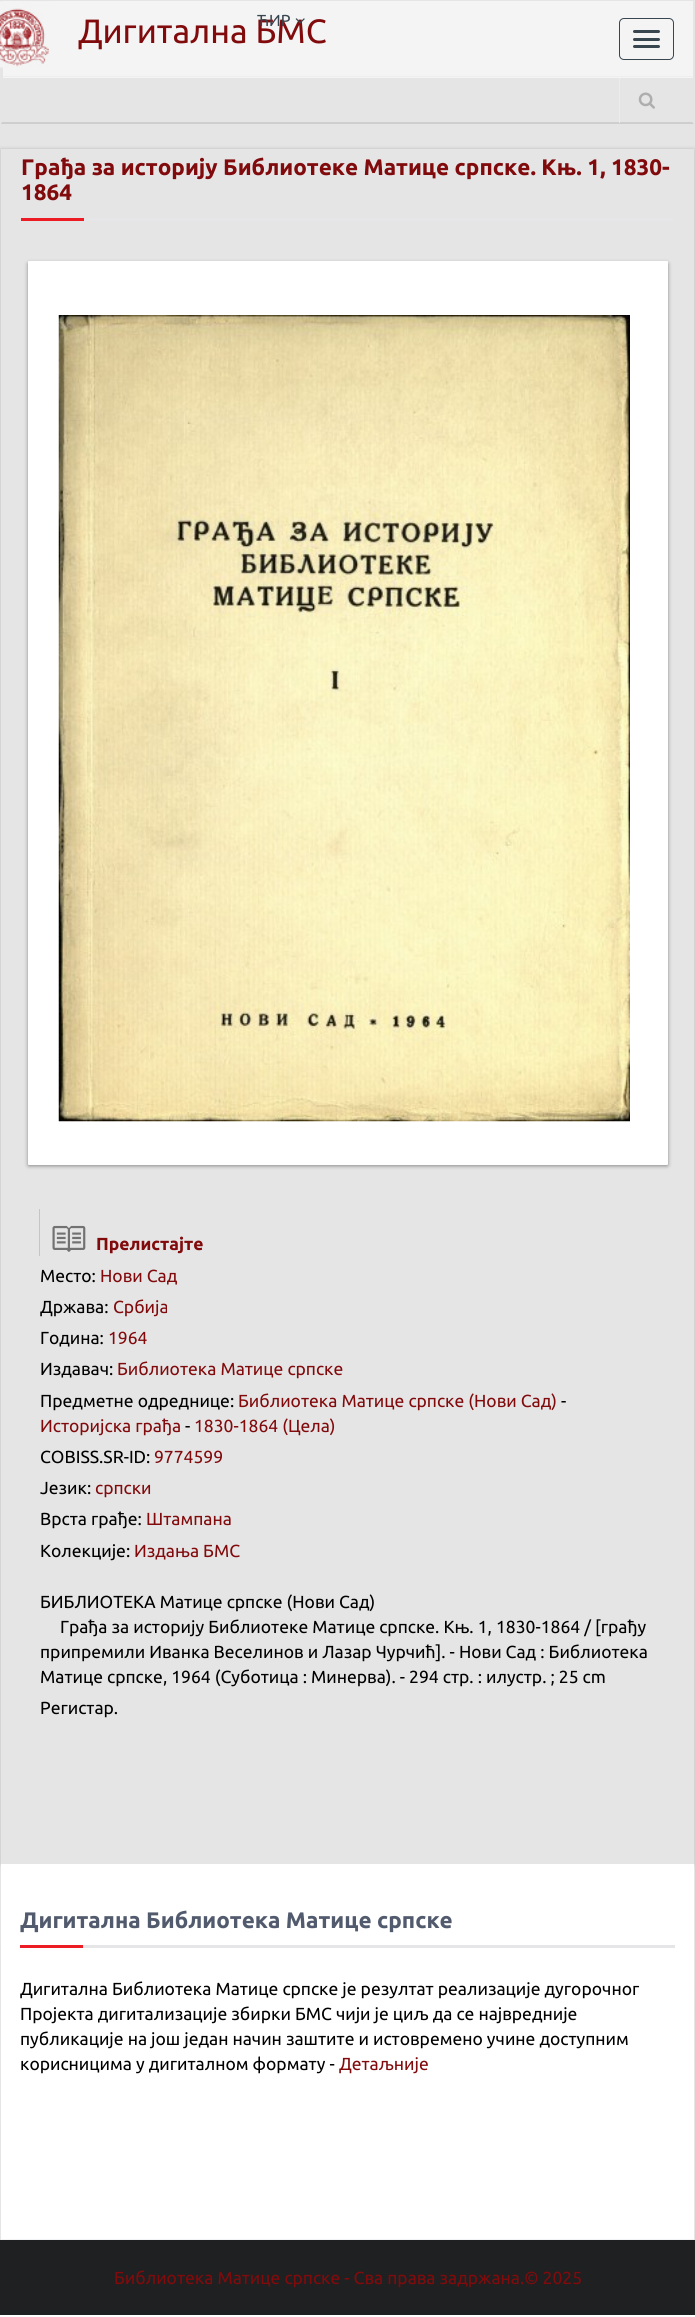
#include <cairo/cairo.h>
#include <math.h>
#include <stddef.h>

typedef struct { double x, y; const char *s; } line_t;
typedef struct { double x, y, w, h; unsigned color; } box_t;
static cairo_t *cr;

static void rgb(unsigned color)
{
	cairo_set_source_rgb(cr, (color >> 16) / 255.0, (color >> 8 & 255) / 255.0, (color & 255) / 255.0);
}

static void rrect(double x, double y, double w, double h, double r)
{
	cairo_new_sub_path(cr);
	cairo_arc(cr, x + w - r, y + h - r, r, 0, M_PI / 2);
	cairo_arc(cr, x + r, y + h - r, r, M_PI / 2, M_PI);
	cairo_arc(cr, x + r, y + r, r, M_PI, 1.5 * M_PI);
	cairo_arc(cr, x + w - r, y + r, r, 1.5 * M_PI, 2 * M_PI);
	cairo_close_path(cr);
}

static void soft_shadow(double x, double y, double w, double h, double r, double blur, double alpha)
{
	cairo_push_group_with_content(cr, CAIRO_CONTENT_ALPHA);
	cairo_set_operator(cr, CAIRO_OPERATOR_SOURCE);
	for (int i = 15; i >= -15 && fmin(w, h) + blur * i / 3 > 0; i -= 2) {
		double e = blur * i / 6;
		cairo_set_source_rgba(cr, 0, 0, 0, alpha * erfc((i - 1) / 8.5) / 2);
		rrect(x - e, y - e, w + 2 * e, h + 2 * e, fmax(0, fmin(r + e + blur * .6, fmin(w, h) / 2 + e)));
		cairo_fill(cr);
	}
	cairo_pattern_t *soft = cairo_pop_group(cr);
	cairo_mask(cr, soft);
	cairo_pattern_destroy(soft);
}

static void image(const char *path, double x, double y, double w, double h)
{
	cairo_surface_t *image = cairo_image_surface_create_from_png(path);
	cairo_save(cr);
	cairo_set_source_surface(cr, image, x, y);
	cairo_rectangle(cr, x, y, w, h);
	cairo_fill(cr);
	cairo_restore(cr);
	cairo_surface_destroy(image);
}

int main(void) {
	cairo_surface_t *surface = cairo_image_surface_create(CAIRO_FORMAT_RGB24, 695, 2317);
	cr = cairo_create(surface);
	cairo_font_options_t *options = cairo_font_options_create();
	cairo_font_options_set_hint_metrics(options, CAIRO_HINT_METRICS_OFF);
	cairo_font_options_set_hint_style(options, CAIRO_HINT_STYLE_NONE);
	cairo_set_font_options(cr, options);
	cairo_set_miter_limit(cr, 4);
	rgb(0xffffff);
	cairo_paint(cr);
	rgb(0xe5e5e5);
	cairo_rectangle(cr, 0, 0, 695, 2240);
	cairo_fill(cr);
	rgb(0xcecece);
	cairo_new_path(cr);
	cairo_move_to(cr, 694, 124);
	cairo_line_to(cr, 1, 124);
	cairo_line_to(cr, 2, 122);
	cairo_line_to(cr, 692, 122);
	cairo_close_path(cr);
	cairo_fill(cr);
	rgb(0xf4f4f4);
	cairo_rectangle(cr, 3, 1, 690, 77);
	cairo_fill(cr);
	rgb(0xeeeeee);
	cairo_rectangle(cr, 3, 76, 690, 1);
	cairo_fill(cr);
	rrect(619.5, 18.5, 54, 41, 4.5);
	rgb(0x384650);
	cairo_set_line_width(cr, 1);
	cairo_stroke(cr);
	rrect(633, 30, 27, 3, 1.5);
	cairo_fill(cr);
	rrect(633, 38, 27, 3, 1.5);
	cairo_fill(cr);
	rrect(633, 45, 27, 3, 1.5);
	cairo_fill(cr);
	image("img/2.png", 0, 1, 49, 67);
	rgb(0xebecee);
	cairo_rectangle(cr, 619, 78, 1, 45);
	cairo_fill(cr);
	image("img/3.png", 638, 92, 17, 17);
	rgb(0x000000);
	soft_shadow(1, 149, 693, 1715, 0, 2, 0.18);
	{
		static const box_t items[] = {
			{1, 149, 693, 1715, 0xe5e5e5},
			{21, 218, 63, 3, 0xed1c24},
			{84, 218, 590, 3, 0xe6e6e8},
		};
		for (size_t i = 0; i < sizeof items / sizeof *items; i++) {
			rgb(items[i].color);
			cairo_rectangle(cr, items[i].x, items[i].y, items[i].w, items[i].h);
			cairo_fill(cr);
		}
	}
	rgb(0x888888);
	soft_shadow(28, 263, 640, 903, 1, 2, 1);
	rgb(0xffffff);
	rrect(28, 261, 640, 904, 1);
	cairo_fill(cr);
	image("img/4.png", 58, 315, 572, 807);
	rgb(0xc5c5c5);
	cairo_rectangle(cr, 39, 1209, 1, 47);
	cairo_fill(cr);
	image("img/5.png", 52, 1225, 34, 27);
	{
		static const box_t items[] = {
			{1, 1864, 693, 375, 0xffffff},
			{1, 2239, 693, 1, 0xf2f3f5},
			{20, 1945, 63, 3, 0xed1c24},
			{83, 1945, 592, 3, 0xe6e6e8},
			{0, 2240, 695, 75, 0x1f2021},
		};
		for (size_t i = 0; i < sizeof items / sizeof *items; i++) {
			rgb(items[i].color);
			cairo_rectangle(cr, items[i].x, items[i].y, items[i].w, items[i].h);
			cairo_fill(cr);
		}
	}
	cairo_select_font_face(cr, "Ubuntu", CAIRO_FONT_SLANT_NORMAL, CAIRO_FONT_WEIGHT_NORMAL);
	cairo_set_font_size(cr, 33.75);
	rgb(0x810a0c);
	cairo_move_to(cr, 78, 43);
	cairo_show_text(cr, "Дигитална БМС");
	image("img/1.png", 295, 18, 10, 6);
	cairo_set_font_size(cr, 16);
	rgb(0x384650);
	cairo_move_to(cr, 257, 26);
	cairo_show_text(cr, "ЋИР");
	cairo_select_font_face(cr, "Ubuntu", CAIRO_FONT_SLANT_NORMAL, CAIRO_FONT_WEIGHT_BOLD);
	cairo_set_font_size(cr, 22.5);
	rgb(0x810a0c);
	cairo_move_to(cr, 21, 175);
	cairo_show_text(cr, "Грађа за историју Библиотеке Матице српске. Књ. 1, 1830-");
	cairo_move_to(cr, 21, 200);
	cairo_show_text(cr, "1864");
	cairo_set_font_size(cr, 17.5);
	cairo_move_to(cr, 96, 1250);
	cairo_show_text(cr, "Прелистајте");
	cairo_select_font_face(cr, "Ubuntu", CAIRO_FONT_SLANT_NORMAL, CAIRO_FONT_WEIGHT_NORMAL);
	rgb(0x000000);
	cairo_move_to(cr, 40, 1282);
	cairo_show_text(cr, "Место:");
	rgb(0x810a0c);
	cairo_move_to(cr, 100, 1282);
	cairo_show_text(cr, "Нови Сад");
	rgb(0x000000);
	cairo_move_to(cr, 40, 1313);
	cairo_show_text(cr, "Држава:");
	rgb(0x810a0c);
	cairo_move_to(cr, 113, 1313);
	cairo_show_text(cr, "Србија");
	rgb(0x000000);
	cairo_move_to(cr, 40, 1344);
	cairo_show_text(cr, "Година:");
	rgb(0x810a0c);
	cairo_move_to(cr, 108, 1344);
	cairo_show_text(cr, "1964");
	rgb(0x000000);
	cairo_move_to(cr, 40, 1375);
	cairo_show_text(cr, "Издавач:");
	rgb(0x810a0c);
	cairo_move_to(cr, 117, 1375);
	cairo_show_text(cr, "Библиотека Матице српске");
	rgb(0x000000);
	cairo_move_to(cr, 40, 1407);
	cairo_show_text(cr, "Предметне одреднице:");
	rgb(0x810a0c);
	cairo_move_to(cr, 238, 1407);
	cairo_show_text(cr, "Библиотека Матице српске (Нови Сад)");
	rgb(0x000000);
	cairo_move_to(cr, 561, 1407);
	cairo_show_text(cr, "-");
	rgb(0x810a0c);
	cairo_move_to(cr, 40, 1432);
	cairo_show_text(cr, "Историјска грађа");
	rgb(0x000000);
	cairo_move_to(cr, 185, 1432);
	cairo_show_text(cr, "-");
	rgb(0x810a0c);
	cairo_move_to(cr, 194, 1432);
	cairo_show_text(cr, "1830-1864 (Цела)");
	rgb(0x000000);
	cairo_move_to(cr, 40, 1463);
	cairo_show_text(cr, "COBISS.SR-ID:");
	rgb(0x810a0c);
	cairo_move_to(cr, 154, 1463);
	cairo_show_text(cr, "9774599");
	rgb(0x000000);
	cairo_move_to(cr, 40, 1494);
	cairo_show_text(cr, "Језик:");
	rgb(0x810a0c);
	cairo_move_to(cr, 95, 1494);
	cairo_show_text(cr, "српски");
	rgb(0x000000);
	cairo_move_to(cr, 40, 1525);
	cairo_show_text(cr, "Врста грађе:");
	rgb(0x810a0c);
	cairo_move_to(cr, 146, 1525);
	cairo_show_text(cr, "Штампана");
	rgb(0x000000);
	cairo_move_to(cr, 40, 1557);
	cairo_show_text(cr, "Колекције:");
	rgb(0x810a0c);
	cairo_move_to(cr, 134, 1557);
	cairo_show_text(cr, "Издања БМС");
	rgb(0x000000);
	{
		static const line_t items[] = {
			{40, 1608, "БИБЛИОТЕКА Матице српске (Нови Сад)"},
			{60, 1633, "Грађа за историју Библиотеке Матице српске. Књ. 1, 1830-1864 / [грађу"},
			{40, 1658, "припремили Иванка Веселинов и Лазар Чурчић]. - Нови Сад : Библиотека"},
			{40, 1683, "Матице српске, 1964 (Суботица : Минерва). - 294 стр. : илустр. ; 25 cm"},
			{40, 1714, "Регистар."},
		};
		for (size_t i = 0; i < sizeof items / sizeof *items; i++) {
			cairo_move_to(cr, items[i].x, items[i].y);
			cairo_show_text(cr, items[i].s);
		}
	}
	cairo_select_font_face(cr, "Ubuntu", CAIRO_FONT_SLANT_NORMAL, CAIRO_FONT_WEIGHT_BOLD);
	cairo_set_font_size(cr, 22.5);
	rgb(0x525b6e);
	cairo_move_to(cr, 20, 1928);
	cairo_show_text(cr, "Дигитална Библиотека Матице српске");
	cairo_select_font_face(cr, "Ubuntu", CAIRO_FONT_SLANT_NORMAL, CAIRO_FONT_WEIGHT_NORMAL);
	cairo_set_font_size(cr, 17.5);
	rgb(0x000000);
	{
		static const line_t items[] = {
			{20, 1995, "Дигитална Библиотека Матице српске је резултат реализације дугорочног"},
			{20, 2020, "Пројекта дигитализације збирки БМС чији је циљ да се највредније"},
			{20, 2045, "публикације на још један начин заштите и истовремено учине доступним"},
			{20, 2070, "корисницима у дигиталном формату -"},
		};
		for (size_t i = 0; i < sizeof items / sizeof *items; i++) {
			cairo_move_to(cr, items[i].x, items[i].y);
			cairo_show_text(cr, items[i].s);
		}
	}
	rgb(0x810a0c);
	cairo_move_to(cr, 339, 2070);
	cairo_show_text(cr, "Детаљније");
	cairo_move_to(cr, 114, 2284);
	cairo_show_text(cr, "Библиотека Матице српске - Сва права задржана.© 2025");
	cairo_surface_write_to_png(surface, "page.png");
	cairo_font_options_destroy(options);
	cairo_destroy(cr);
	cairo_surface_destroy(surface);
	return 0;
}
